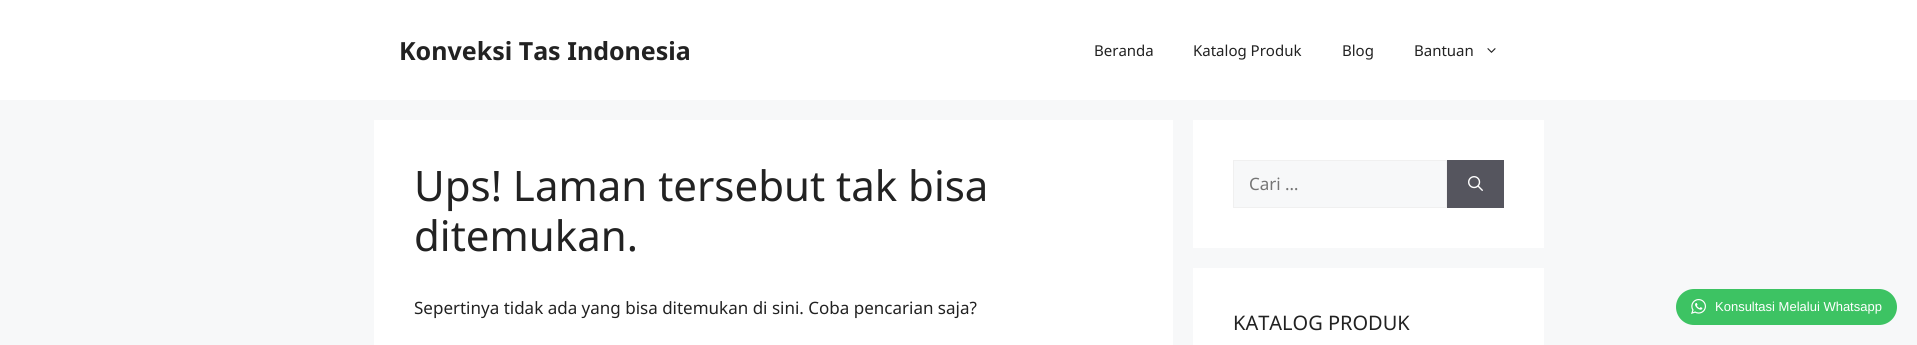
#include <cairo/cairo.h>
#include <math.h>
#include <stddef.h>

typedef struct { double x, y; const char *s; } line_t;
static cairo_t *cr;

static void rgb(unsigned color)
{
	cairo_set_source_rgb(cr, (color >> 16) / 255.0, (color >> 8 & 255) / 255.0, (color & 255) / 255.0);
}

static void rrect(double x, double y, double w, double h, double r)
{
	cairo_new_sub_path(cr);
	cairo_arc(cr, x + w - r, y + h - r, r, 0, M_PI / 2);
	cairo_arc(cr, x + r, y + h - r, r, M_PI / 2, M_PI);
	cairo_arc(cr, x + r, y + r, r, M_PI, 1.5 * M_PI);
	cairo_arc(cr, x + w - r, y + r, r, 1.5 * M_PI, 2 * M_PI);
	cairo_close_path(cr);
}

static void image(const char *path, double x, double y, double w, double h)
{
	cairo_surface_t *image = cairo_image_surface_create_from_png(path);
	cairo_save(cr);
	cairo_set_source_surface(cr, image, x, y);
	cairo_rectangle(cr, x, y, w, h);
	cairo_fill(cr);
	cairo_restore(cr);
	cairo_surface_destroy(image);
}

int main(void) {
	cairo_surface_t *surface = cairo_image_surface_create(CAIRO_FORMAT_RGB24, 1917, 345);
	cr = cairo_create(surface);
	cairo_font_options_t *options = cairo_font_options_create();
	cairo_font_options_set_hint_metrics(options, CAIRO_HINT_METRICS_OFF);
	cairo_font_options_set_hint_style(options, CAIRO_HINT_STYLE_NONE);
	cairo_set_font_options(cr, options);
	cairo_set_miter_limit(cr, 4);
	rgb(0xf7f8f9);
	cairo_paint(cr);
	rgb(0xffffff);
	cairo_rectangle(cr, 0, 0, 1917, 100);
	cairo_fill(cr);
	image("img/1.png", 1487, 48, 9, 5);
	cairo_rectangle(cr, 374, 120, 799, 225);
	cairo_fill(cr);
	cairo_rectangle(cr, 1193, 120, 351, 128);
	cairo_fill(cr);
	rgb(0xf7f8f9);
	cairo_rectangle(cr, 1233.5, 160.5, 213, 47);
	cairo_fill_preserve(cr);
	rgb(0xf0f0f0);
	cairo_set_line_width(cr, 1);
	cairo_stroke(cr);
	rgb(0x55555e);
	cairo_rectangle(cr, 1447, 160, 57, 48);
	cairo_fill(cr);
	image("img/2.png", 1468, 176, 15, 15);
	rgb(0xffffff);
	cairo_rectangle(cr, 1193, 268, 351, 77);
	cairo_fill(cr);
	rgb(0x3dc363);
	rrect(1676, 289, 221, 36, 18);
	cairo_fill(cr);
	image("img/3.png", 1691, 299, 15, 15);
	cairo_select_font_face(cr, "Noto Sans", CAIRO_FONT_SLANT_NORMAL, CAIRO_FONT_WEIGHT_BOLD);
	cairo_set_font_size(cr, 25);
	rgb(0x222222);
	cairo_move_to(cr, 399, 60);
	cairo_show_text(cr, "Konveksi Tas Indonesia");
	cairo_select_font_face(cr, "Noto Sans", CAIRO_FONT_SLANT_NORMAL, CAIRO_FONT_WEIGHT_NORMAL);
	cairo_set_font_size(cr, 15);
	{
		static const line_t items[] = {
			{1094, 56, "Beranda"},
			{1193, 56, "Katalog Produk"},
			{1342, 56, "Blog"},
			{1414, 56, "Bantuan"},
		};
		for (size_t i = 0; i < sizeof items / sizeof *items; i++) {
			cairo_move_to(cr, items[i].x, items[i].y);
			cairo_show_text(cr, items[i].s);
		}
	}
	cairo_set_font_size(cr, 42);
	cairo_move_to(cr, 414, 201);
	cairo_show_text(cr, "Ups! Laman tersebut tak bisa");
	cairo_move_to(cr, 414, 251);
	cairo_show_text(cr, "ditemukan.");
	cairo_set_font_size(cr, 17);
	cairo_move_to(cr, 414, 314);
	cairo_show_text(cr, "Sepertinya tidak ada yang bisa ditemukan di sini. Coba pencarian saja?");
	rgb(0x757575);
	cairo_move_to(cr, 1249, 190);
	cairo_show_text(cr, "Cari …");
	cairo_set_font_size(cr, 20);
	rgb(0x222222);
	cairo_move_to(cr, 1233, 330);
	cairo_show_text(cr, "KATALOG PRODUK");
	cairo_select_font_face(cr, "Liberation Sans", CAIRO_FONT_SLANT_NORMAL, CAIRO_FONT_WEIGHT_NORMAL);
	cairo_set_font_size(cr, 13);
	rgb(0xffffff);
	cairo_move_to(cr, 1715, 311);
	cairo_show_text(cr, "Konsultasi Melalui Whatsapp");
	cairo_surface_write_to_png(surface, "page.png");
	cairo_font_options_destroy(options);
	cairo_destroy(cr);
	cairo_surface_destroy(surface);
	return 0;
}
